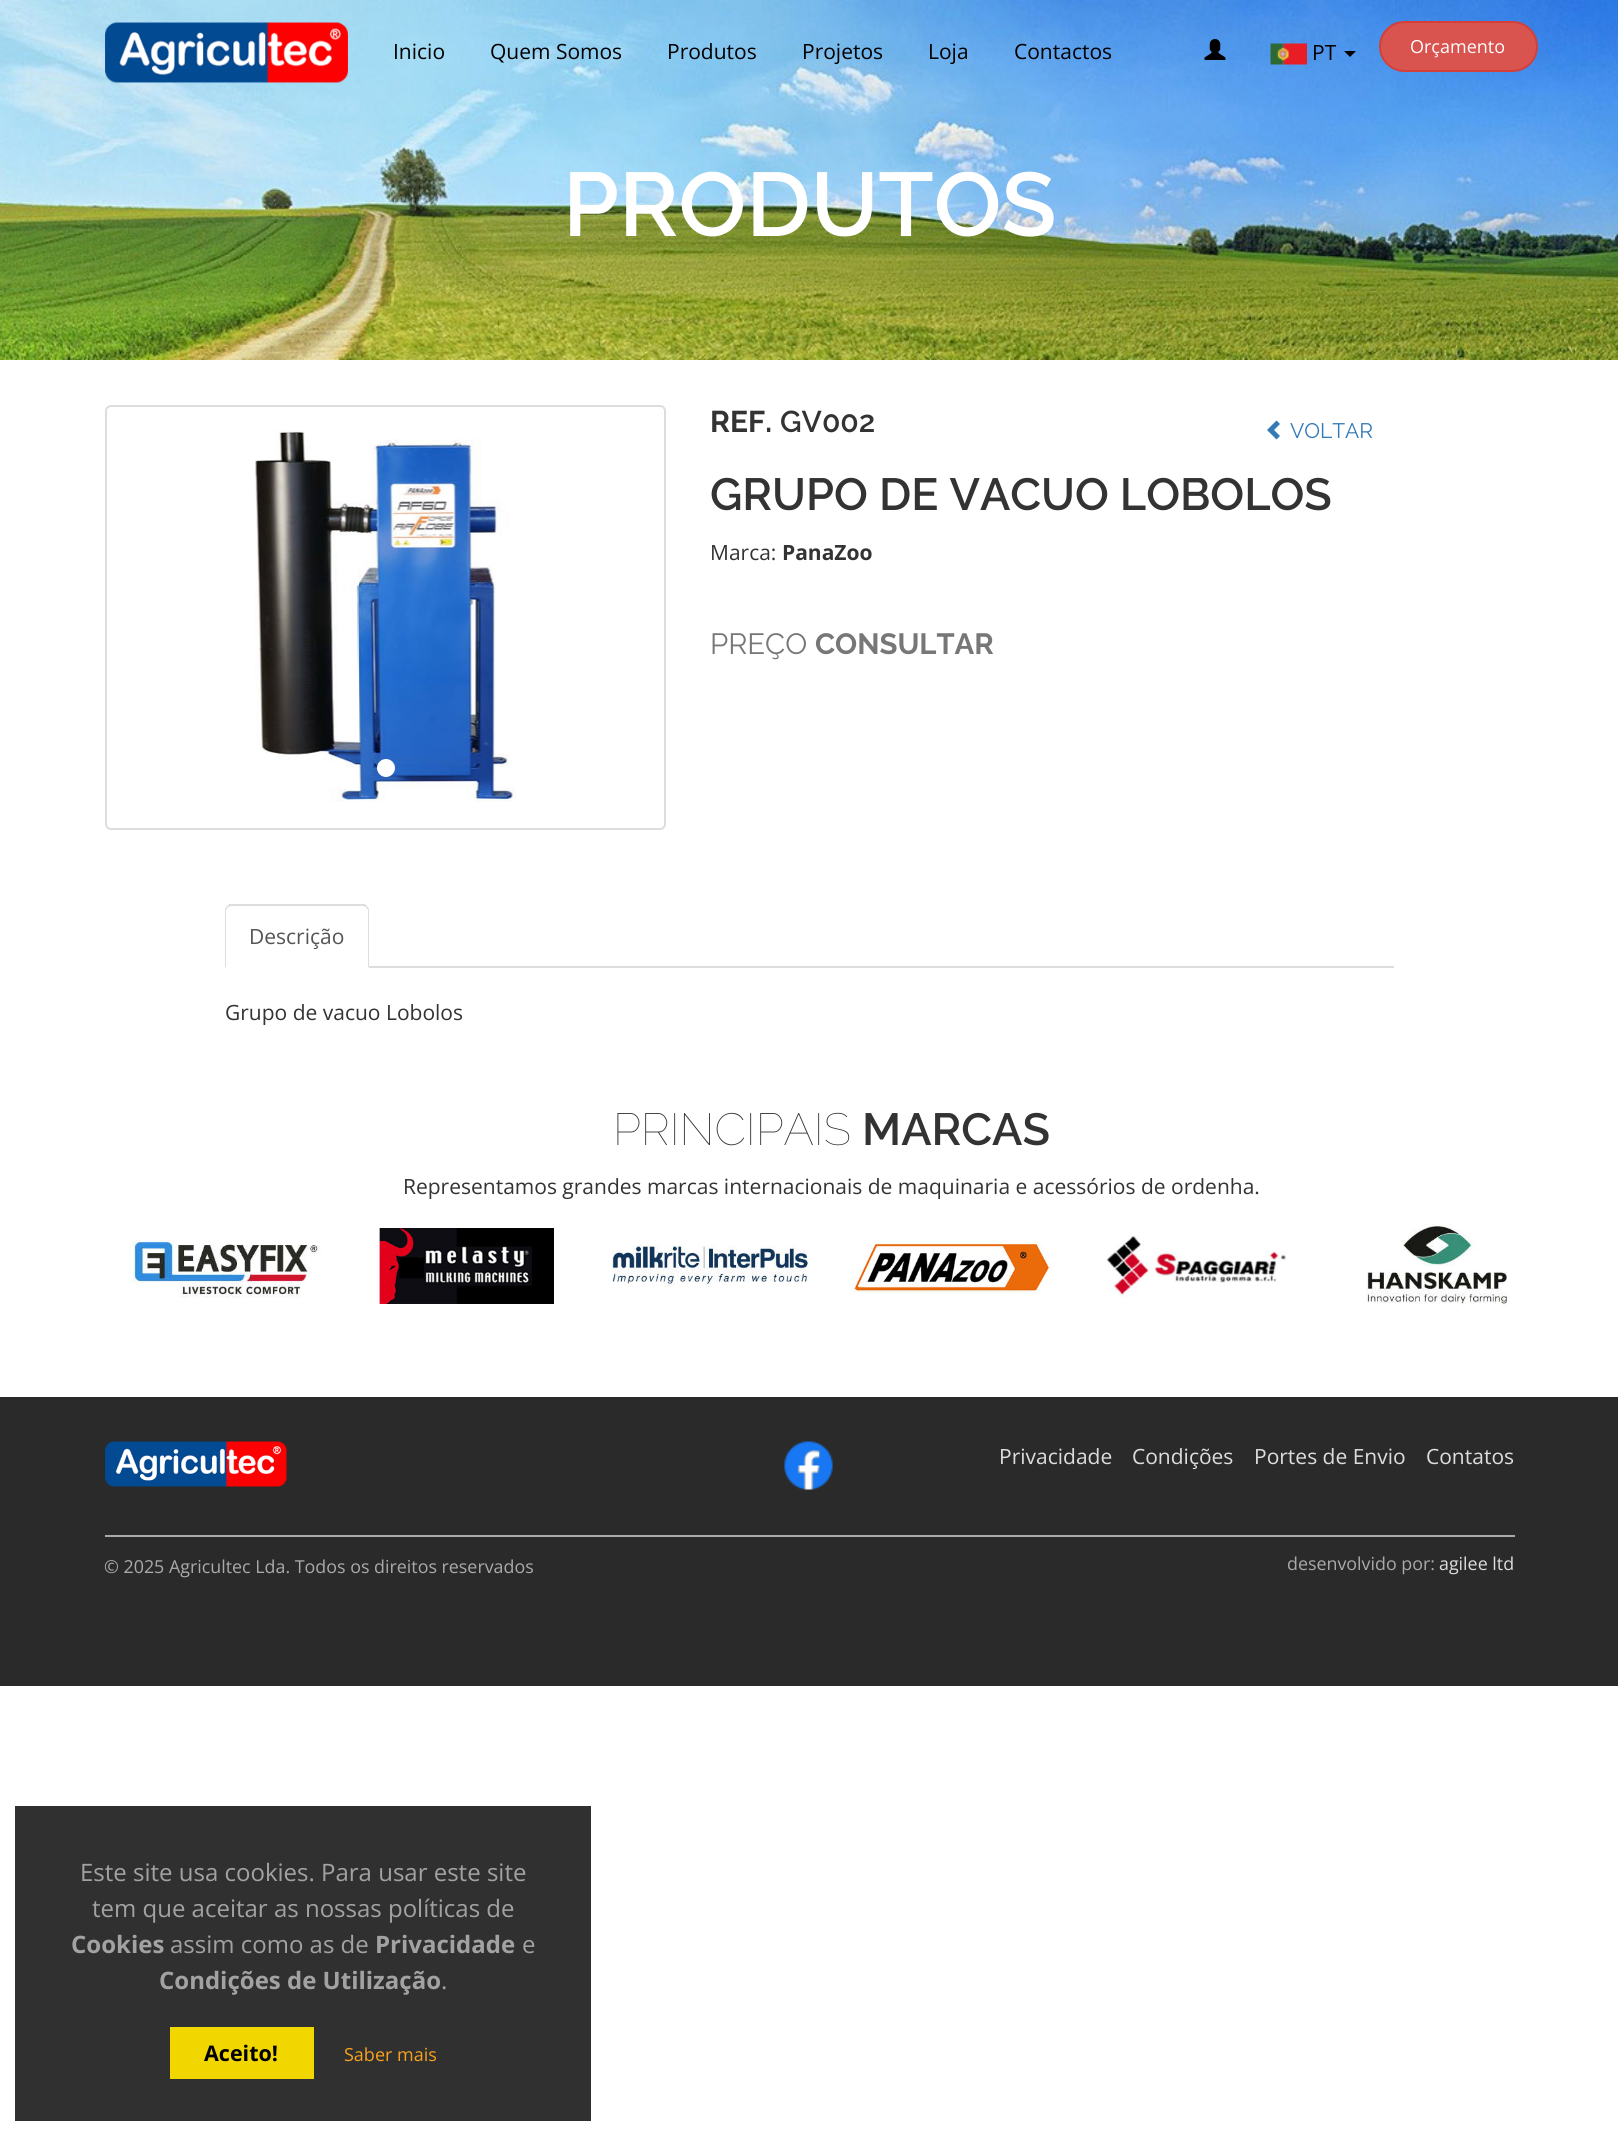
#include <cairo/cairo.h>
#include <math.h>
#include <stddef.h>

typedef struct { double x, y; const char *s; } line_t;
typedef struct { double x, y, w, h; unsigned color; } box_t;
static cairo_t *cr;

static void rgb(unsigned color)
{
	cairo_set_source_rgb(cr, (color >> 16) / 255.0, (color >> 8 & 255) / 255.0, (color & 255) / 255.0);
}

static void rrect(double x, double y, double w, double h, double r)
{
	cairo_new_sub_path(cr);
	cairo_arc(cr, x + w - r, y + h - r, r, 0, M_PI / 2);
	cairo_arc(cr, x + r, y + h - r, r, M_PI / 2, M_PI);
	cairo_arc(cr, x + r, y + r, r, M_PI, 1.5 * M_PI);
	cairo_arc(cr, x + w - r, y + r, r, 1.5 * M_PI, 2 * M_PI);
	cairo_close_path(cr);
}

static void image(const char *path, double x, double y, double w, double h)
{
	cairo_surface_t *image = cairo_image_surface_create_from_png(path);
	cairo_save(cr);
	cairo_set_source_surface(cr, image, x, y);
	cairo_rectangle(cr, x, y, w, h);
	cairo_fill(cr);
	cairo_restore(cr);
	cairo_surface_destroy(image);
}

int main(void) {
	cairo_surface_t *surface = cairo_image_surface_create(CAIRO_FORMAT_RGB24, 1618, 2135);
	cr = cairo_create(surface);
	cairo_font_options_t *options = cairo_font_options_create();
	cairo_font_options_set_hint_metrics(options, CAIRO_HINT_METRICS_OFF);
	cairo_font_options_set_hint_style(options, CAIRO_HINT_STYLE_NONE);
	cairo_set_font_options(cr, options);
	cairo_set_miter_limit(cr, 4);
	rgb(0xffffff);
	cairo_paint(cr);
	image("img/4.png", 0, 0, 1618, 360);
	image("img/1.png", 105, 22, 243, 61);
	image("img/2.png", 1204, 39, 22, 21);
	image("img/3.png", 1270, 43, 37, 22);
	rgb(0x000000);
	cairo_new_path(cr);
	cairo_move_to(cr, 1344, 51);
	cairo_line_to(cr, 1356, 51);
	cairo_line_to(cr, 1350, 57);
	cairo_close_path(cr);
	cairo_fill(cr);
	rgb(0xd9534f);
	rrect(1380, 22, 157, 49, 24.5);
	cairo_fill_preserve(cr);
	rgb(0xd43f3a);
	cairo_stroke(cr);
	rrect(106, 406, 559, 423, 5);
	rgb(0xdddddd);
	cairo_stroke(cr);
	image("img/5.png", 255, 430, 262, 372);
	rgb(0xffffff);
	cairo_arc(cr, 386, 768, 8, 0, 2 * M_PI);
	cairo_fill_preserve(cr);
	cairo_stroke(cr);
	rgb(0x337ab7);
	cairo_new_path(cr);
	cairo_move_to(cr, 1280, 424);
	cairo_line_to(cr, 1274, 430);
	cairo_line_to(cr, 1280, 436);
	cairo_line_to(cr, 1276.5, 439.5);
	cairo_line_to(cr, 1267, 430);
	cairo_line_to(cr, 1276.5, 420.5);
	cairo_close_path(cr);
	cairo_fill(cr);
	rgb(0xdddddd);
	cairo_rectangle(cr, 369, 966, 1025, 2);
	cairo_fill(cr);
	cairo_new_path(cr);
	cairo_move_to(cr, 231, 906);
	cairo_line_to(cr, 228, 907);
	cairo_line_to(cr, 227, 906);
	cairo_line_to(cr, 229, 904);
	cairo_line_to(cr, 365, 904);
	cairo_line_to(cr, 367, 906);
	cairo_line_to(cr, 366, 907);
	cairo_line_to(cr, 363, 906);
	cairo_close_path(cr);
	cairo_fill(cr);
	cairo_new_path(cr);
	cairo_move_to(cr, 369, 968);
	cairo_line_to(cr, 369, 910);
	cairo_curve_to(cr, 369, 909, 368, 907, 367, 906);
	cairo_line_to(cr, 366, 907);
	cairo_line_to(cr, 368, 910);
	cairo_line_to(cr, 368, 966);
	cairo_close_path(cr);
	cairo_fill(cr);
	cairo_new_path(cr);
	cairo_move_to(cr, 225, 968);
	cairo_line_to(cr, 226, 966);
	cairo_line_to(cr, 226, 910);
	cairo_line_to(cr, 228, 907);
	cairo_line_to(cr, 227, 906);
	cairo_curve_to(cr, 226, 907, 225, 909, 225, 910);
	cairo_close_path(cr);
	cairo_fill(cr);
	image("img/6.png", 127, 1240, 194, 58);
	image("img/7.png", 379, 1224, 175, 82);
	image("img/8.png", 612, 1245, 197, 42);
	image("img/9.png", 853, 1240, 197, 53);
	image("img/10.png", 1106, 1235, 181, 63);
	image("img/11.png", 1366, 1224, 142, 82);
	rgb(0x2a2a2a);
	cairo_rectangle(cr, 0, 1397, 1618, 289);
	cairo_fill(cr);
	image("img/12.png", 105, 1441, 182, 46);
	image("img/13.png", 784, 1441, 49, 49);
	{
		static const box_t items[] = {
			{105, 1535, 1410, 2, 0xaaaaaa},
			{15, 1806, 576, 315, 0x303030},
			{170, 2027, 144, 52, 0xf1d600},
		};
		for (size_t i = 0; i < sizeof items / sizeof *items; i++) {
			rgb(items[i].color);
			cairo_rectangle(cr, items[i].x, items[i].y, items[i].w, items[i].h);
			cairo_fill(cr);
		}
	}
	cairo_select_font_face(cr, "Open Sans", CAIRO_FONT_SLANT_NORMAL, CAIRO_FONT_WEIGHT_NORMAL);
	cairo_set_font_size(cr, 21);
	rgb(0x000000);
	{
		static const line_t items[] = {
			{393, 59, "Inicio"},
			{490, 59, "Quem Somos"},
			{667, 59, "Produtos"},
			{802, 59, "Projetos"},
			{928, 59, "Loja"},
			{1014, 59, "Contactos"},
			{1312, 60, "PT"},
		};
		for (size_t i = 0; i < sizeof items / sizeof *items; i++) {
			cairo_move_to(cr, items[i].x, items[i].y);
			cairo_show_text(cr, items[i].s);
		}
	}
	cairo_set_font_size(cr, 18);
	rgb(0xffffff);
	cairo_move_to(cr, 1410, 53);
	cairo_show_text(cr, "Orçamento");
	cairo_select_font_face(cr, "Raleway SemiBold", CAIRO_FONT_SLANT_NORMAL, CAIRO_FONT_WEIGHT_NORMAL);
	cairo_set_font_size(cr, 90);
	cairo_move_to(cr, 563, 236);
	cairo_show_text(cr, "PRODUTOS");
	cairo_select_font_face(cr, "Raleway", CAIRO_FONT_SLANT_NORMAL, CAIRO_FONT_WEIGHT_BOLD);
	cairo_set_font_size(cr, 30);
	rgb(0x333333);
	cairo_move_to(cr, 710, 432);
	cairo_show_text(cr, "REF.");
	cairo_select_font_face(cr, "Raleway SemiBold", CAIRO_FONT_SLANT_NORMAL, CAIRO_FONT_WEIGHT_NORMAL);
	cairo_move_to(cr, 780, 432);
	cairo_show_text(cr, "GV002");
	cairo_select_font_face(cr, "Raleway", CAIRO_FONT_SLANT_NORMAL, CAIRO_FONT_WEIGHT_NORMAL);
	cairo_set_font_size(cr, 21);
	rgb(0x337ab7);
	cairo_move_to(cr, 1290, 438);
	cairo_show_text(cr, "VOLTAR");
	cairo_select_font_face(cr, "Raleway SemiBold", CAIRO_FONT_SLANT_NORMAL, CAIRO_FONT_WEIGHT_NORMAL);
	cairo_set_font_size(cr, 45);
	rgb(0x333333);
	cairo_move_to(cr, 710, 510);
	cairo_show_text(cr, "GRUPO DE VACUO LOBOLOS");
	cairo_select_font_face(cr, "Open Sans", CAIRO_FONT_SLANT_NORMAL, CAIRO_FONT_WEIGHT_NORMAL);
	cairo_set_font_size(cr, 21);
	cairo_move_to(cr, 710, 560);
	cairo_show_text(cr, "Marca:");
	cairo_select_font_face(cr, "Open Sans", CAIRO_FONT_SLANT_NORMAL, CAIRO_FONT_WEIGHT_BOLD);
	cairo_move_to(cr, 782, 560);
	cairo_show_text(cr, "PanaZoo");
	cairo_select_font_face(cr, "Raleway", CAIRO_FONT_SLANT_NORMAL, CAIRO_FONT_WEIGHT_NORMAL);
	cairo_set_font_size(cr, 29.25);
	rgb(0x777777);
	cairo_move_to(cr, 710, 654);
	cairo_show_text(cr, "PREÇO");
	cairo_select_font_face(cr, "Raleway", CAIRO_FONT_SLANT_NORMAL, CAIRO_FONT_WEIGHT_BOLD);
	cairo_move_to(cr, 815, 654);
	cairo_show_text(cr, "CONSULTAR");
	cairo_select_font_face(cr, "Open Sans", CAIRO_FONT_SLANT_NORMAL, CAIRO_FONT_WEIGHT_NORMAL);
	cairo_set_font_size(cr, 21);
	rgb(0x555555);
	cairo_move_to(cr, 249, 944);
	cairo_show_text(cr, "Descrição");
	rgb(0x333333);
	cairo_move_to(cr, 225, 1020);
	cairo_show_text(cr, "Grupo de vacuo Lobolos");
	cairo_select_font_face(cr, "Raleway Thin", CAIRO_FONT_SLANT_NORMAL, CAIRO_FONT_WEIGHT_NORMAL);
	cairo_set_font_size(cr, 45);
	cairo_move_to(cr, 613, 1145);
	cairo_show_text(cr, "PRINCIPAIS");
	cairo_select_font_face(cr, "Raleway SemiBold", CAIRO_FONT_SLANT_NORMAL, CAIRO_FONT_WEIGHT_NORMAL);
	cairo_move_to(cr, 862, 1145);
	cairo_show_text(cr, "MARCAS");
	cairo_select_font_face(cr, "Open Sans", CAIRO_FONT_SLANT_NORMAL, CAIRO_FONT_WEIGHT_NORMAL);
	cairo_set_font_size(cr, 21);
	cairo_move_to(cr, 403, 1194);
	cairo_show_text(cr, "Representamos grandes marcas internacionais de maquinaria e acessórios de ordenha.");
	rgb(0xdddddd);
	{
		static const line_t items[] = {
			{999, 1464, "Privacidade"},
			{1132, 1464, "Condições"},
			{1254, 1464, "Portes de Envio"},
			{1426, 1464, "Contatos"},
		};
		for (size_t i = 0; i < sizeof items / sizeof *items; i++) {
			cairo_move_to(cr, items[i].x, items[i].y);
			cairo_show_text(cr, items[i].s);
		}
	}
	cairo_set_font_size(cr, 17.85);
	rgb(0xaaaaaa);
	cairo_move_to(cr, 104, 1573);
	cairo_show_text(cr, "© 2025 Agricultec Lda. Todos os direitos reservados");
	cairo_move_to(cr, 1287, 1570);
	cairo_show_text(cr, "desenvolvido por:");
	rgb(0xdddddd);
	cairo_move_to(cr, 1439, 1570);
	cairo_show_text(cr, "agilee ltd");
	cairo_set_font_size(cr, 24);
	rgb(0xa2a2a2);
	cairo_move_to(cr, 80, 1881);
	cairo_show_text(cr, "Este site usa cookies. Para usar este site");
	cairo_move_to(cr, 92, 1917);
	cairo_show_text(cr, "tem que aceitar as nossas políticas de");
	cairo_select_font_face(cr, "Open Sans", CAIRO_FONT_SLANT_NORMAL, CAIRO_FONT_WEIGHT_BOLD);
	cairo_move_to(cr, 71, 1953);
	cairo_show_text(cr, "Cookies");
	cairo_select_font_face(cr, "Open Sans", CAIRO_FONT_SLANT_NORMAL, CAIRO_FONT_WEIGHT_NORMAL);
	cairo_move_to(cr, 170, 1953);
	cairo_show_text(cr, "assim como as de");
	cairo_select_font_face(cr, "Open Sans", CAIRO_FONT_SLANT_NORMAL, CAIRO_FONT_WEIGHT_BOLD);
	cairo_move_to(cr, 375, 1953);
	cairo_show_text(cr, "Privacidade");
	cairo_select_font_face(cr, "Open Sans", CAIRO_FONT_SLANT_NORMAL, CAIRO_FONT_WEIGHT_NORMAL);
	cairo_move_to(cr, 522, 1953);
	cairo_show_text(cr, "e");
	cairo_select_font_face(cr, "Open Sans", CAIRO_FONT_SLANT_NORMAL, CAIRO_FONT_WEIGHT_BOLD);
	cairo_move_to(cr, 159, 1989);
	cairo_show_text(cr, "Condições de Utilização");
	cairo_select_font_face(cr, "Open Sans", CAIRO_FONT_SLANT_NORMAL, CAIRO_FONT_WEIGHT_NORMAL);
	cairo_move_to(cr, 441, 1989);
	cairo_show_text(cr, ".");
	cairo_select_font_face(cr, "Open Sans", CAIRO_FONT_SLANT_NORMAL, CAIRO_FONT_WEIGHT_BOLD);
	cairo_set_font_size(cr, 21.5);
	rgb(0x000000);
	cairo_move_to(cr, 204, 2061);
	cairo_show_text(cr, "Aceito!");
	cairo_select_font_face(cr, "Open Sans", CAIRO_FONT_SLANT_NORMAL, CAIRO_FONT_WEIGHT_NORMAL);
	cairo_set_font_size(cr, 18);
	rgb(0xf6a21d);
	cairo_move_to(cr, 344, 2061);
	cairo_show_text(cr, "Saber mais");
	cairo_surface_write_to_png(surface, "page.png");
	cairo_font_options_destroy(options);
	cairo_destroy(cr);
	cairo_surface_destroy(surface);
	return 0;
}
